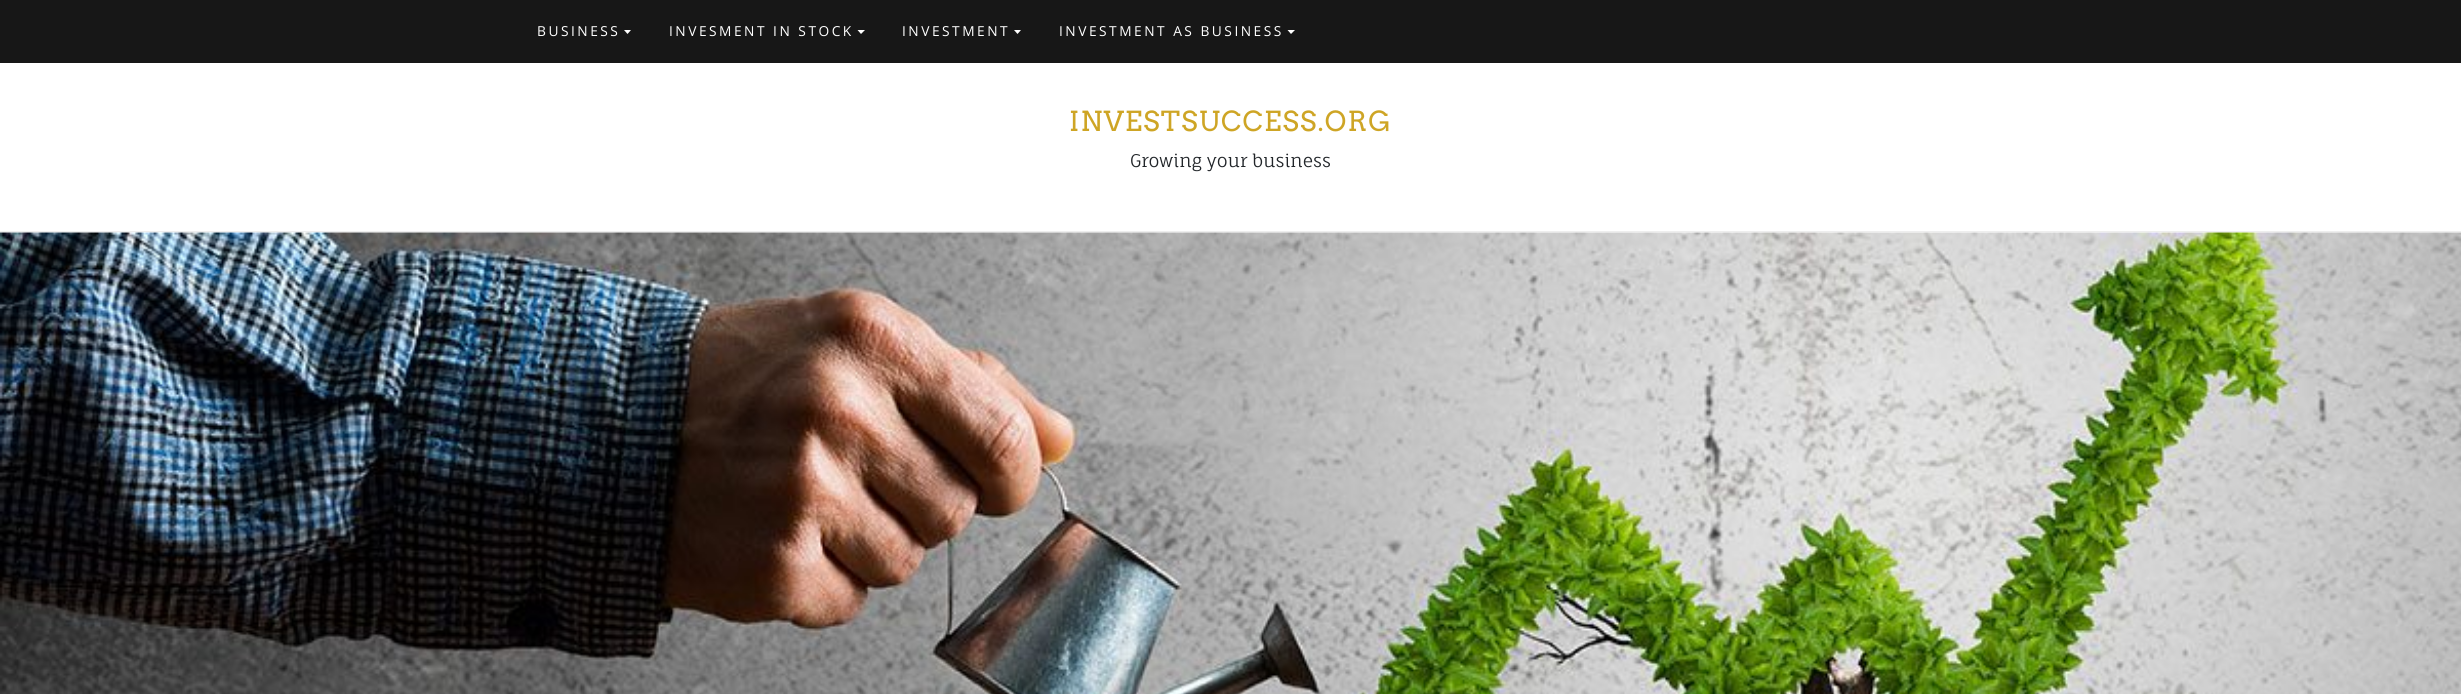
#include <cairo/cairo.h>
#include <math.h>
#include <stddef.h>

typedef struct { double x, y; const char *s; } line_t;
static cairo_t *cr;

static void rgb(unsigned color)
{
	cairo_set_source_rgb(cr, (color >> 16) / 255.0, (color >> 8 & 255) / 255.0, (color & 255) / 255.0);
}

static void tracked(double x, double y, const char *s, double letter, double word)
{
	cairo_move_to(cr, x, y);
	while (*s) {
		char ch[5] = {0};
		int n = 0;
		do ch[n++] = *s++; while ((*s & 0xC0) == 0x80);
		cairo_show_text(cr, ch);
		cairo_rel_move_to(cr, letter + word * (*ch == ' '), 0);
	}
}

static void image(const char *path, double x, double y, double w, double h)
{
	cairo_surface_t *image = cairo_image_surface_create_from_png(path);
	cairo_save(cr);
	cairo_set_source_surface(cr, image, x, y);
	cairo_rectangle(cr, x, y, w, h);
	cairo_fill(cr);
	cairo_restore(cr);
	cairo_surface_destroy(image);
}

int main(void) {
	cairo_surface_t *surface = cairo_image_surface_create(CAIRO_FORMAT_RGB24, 2461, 694);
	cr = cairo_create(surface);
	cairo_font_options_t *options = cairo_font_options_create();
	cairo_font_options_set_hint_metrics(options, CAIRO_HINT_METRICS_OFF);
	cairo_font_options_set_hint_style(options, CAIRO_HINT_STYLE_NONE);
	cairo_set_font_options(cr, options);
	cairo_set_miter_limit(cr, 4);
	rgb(0xffffff);
	cairo_paint(cr);
	rgb(0x171717);
	cairo_rectangle(cr, 0, 0, 2461, 63);
	cairo_fill(cr);
	rgb(0xffffff);
	cairo_new_path(cr);
	cairo_move_to(cr, 624, 30);
	cairo_line_to(cr, 631, 30);
	cairo_line_to(cr, 627.5, 34);
	cairo_close_path(cr);
	cairo_fill(cr);
	cairo_new_path(cr);
	cairo_move_to(cr, 857.5, 30);
	cairo_line_to(cr, 865, 30);
	cairo_line_to(cr, 861, 34);
	cairo_close_path(cr);
	cairo_fill(cr);
	cairo_new_path(cr);
	cairo_move_to(cr, 1014, 30);
	cairo_line_to(cr, 1021, 30);
	cairo_line_to(cr, 1017.5, 34);
	cairo_close_path(cr);
	cairo_fill(cr);
	cairo_new_path(cr);
	cairo_move_to(cr, 1287.5, 30);
	cairo_line_to(cr, 1295, 30);
	cairo_line_to(cr, 1291, 34);
	cairo_close_path(cr);
	cairo_fill(cr);
	rgb(0xeeeeee);
	cairo_rectangle(cr, 0, 231, 2461, 1);
	cairo_fill(cr);
	image("img/1.png", 0, 232, 2461, 462);
	cairo_select_font_face(cr, "Open Sans", CAIRO_FONT_SLANT_NORMAL, CAIRO_FONT_WEIGHT_NORMAL);
	cairo_set_font_size(cr, 13.75);
	rgb(0xffffff);
	{
		static const line_t items[] = {
			{537, 36, "BUSINESS"},
			{669, 36, "INVESMENT IN STOCK"},
			{902, 36, "INVESTMENT"},
			{1059, 36, "INVESTMENT AS BUSINESS"},
		};
		for (size_t i = 0; i < sizeof items / sizeof *items; i++) {
			tracked(items[i].x, items[i].y, items[i].s, 2.5, 0);
		}
	}
	cairo_select_font_face(cr, "Arvo", CAIRO_FONT_SLANT_NORMAL, CAIRO_FONT_WEIGHT_NORMAL);
	cairo_set_font_size(cr, 27.5);
	rgb(0xcea525);
	tracked(1069, 131, "INVESTSUCCESS.ORG", 1.25, 0);
	cairo_select_font_face(cr, "Fauna One", CAIRO_FONT_SLANT_NORMAL, CAIRO_FONT_WEIGHT_NORMAL);
	cairo_set_font_size(cr, 17.5);
	rgb(0x212529);
	cairo_move_to(cr, 1130, 167);
	cairo_show_text(cr, "Growing your business");
	cairo_surface_write_to_png(surface, "page.png");
	cairo_font_options_destroy(options);
	cairo_destroy(cr);
	cairo_surface_destroy(surface);
	return 0;
}
